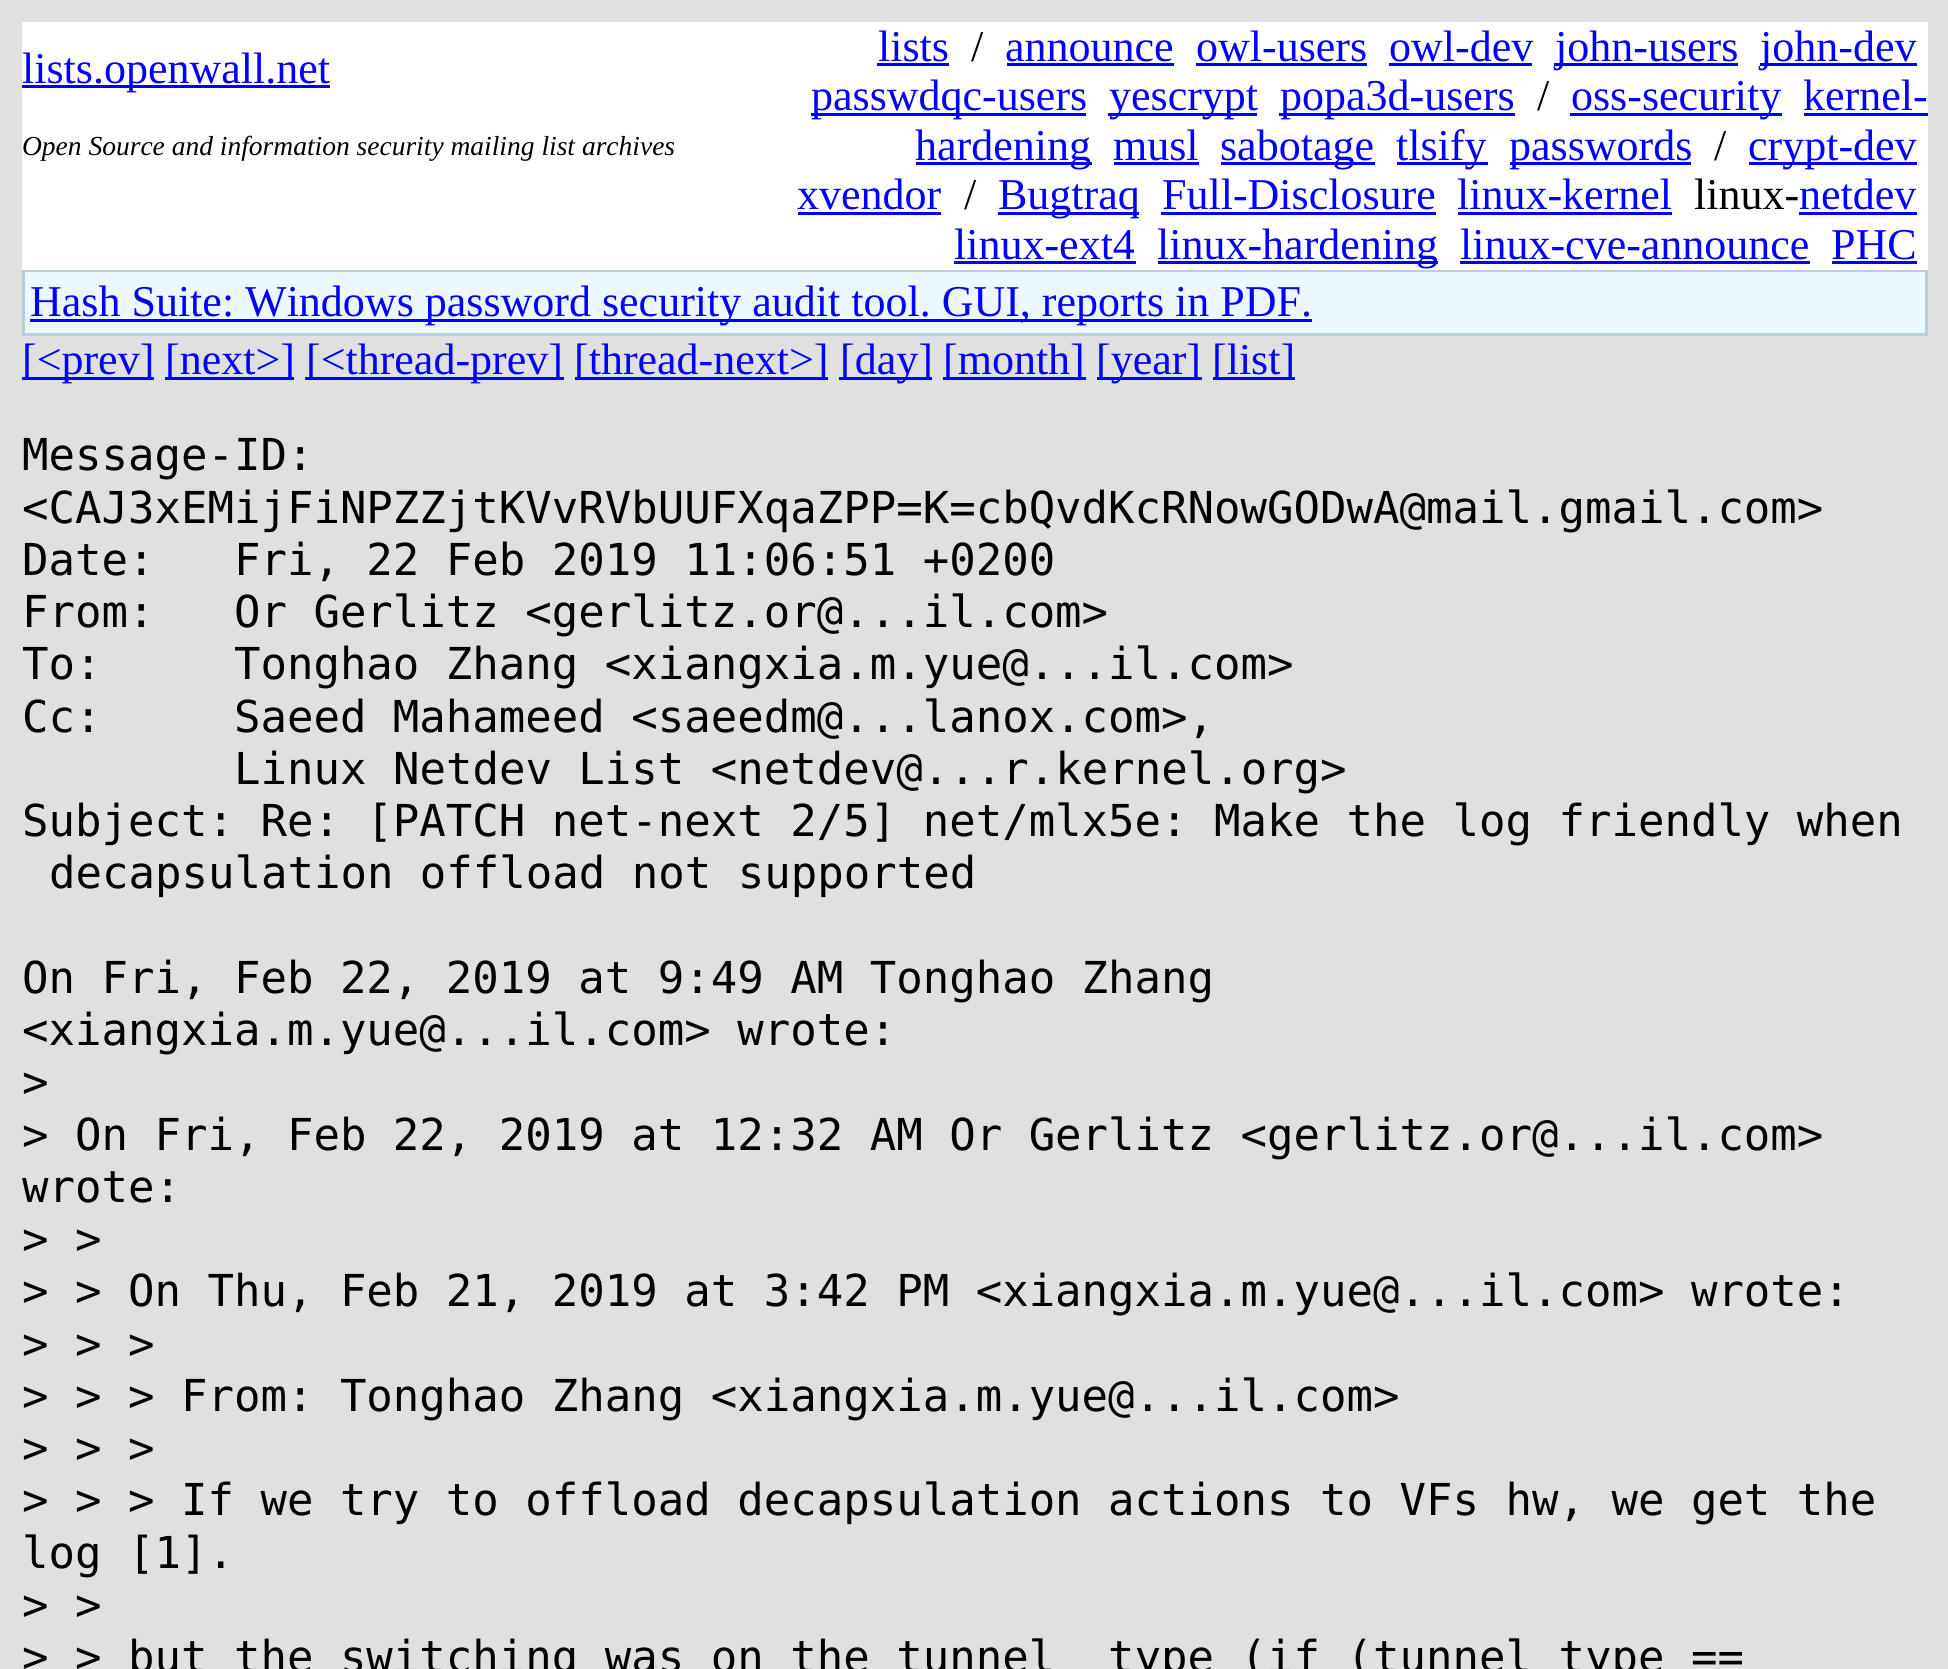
#include <cairo/cairo.h>
#include <math.h>
#include <stddef.h>

typedef struct { double x, y; const char *s; } line_t;
typedef struct { double x, y, w, h; unsigned color; } box_t;
static cairo_t *cr;

static void rgb(unsigned color)
{
	cairo_set_source_rgb(cr, (color >> 16) / 255.0, (color >> 8 & 255) / 255.0, (color & 255) / 255.0);
}

int main(void) {
	cairo_surface_t *surface = cairo_image_surface_create(CAIRO_FORMAT_RGB24, 1948, 1669);
	cr = cairo_create(surface);
	cairo_font_options_t *options = cairo_font_options_create();
	cairo_font_options_set_hint_metrics(options, CAIRO_HINT_METRICS_OFF);
	cairo_font_options_set_hint_style(options, CAIRO_HINT_STYLE_NONE);
	cairo_set_font_options(cr, options);
	cairo_set_miter_limit(cr, 4);
	rgb(0xe0e0e0);
	cairo_paint(cr);
	{
		static const box_t items[] = {
			{22, 22, 1906, 248, 0xffffff},
			{22, 85, 308, 3, 0x0000ff},
			{877, 63, 72, 3, 0x0000ff},
			{1007, 63, 167, 3, 0x0000ff},
			{1196, 63, 171, 3, 0x0000ff},
			{1389, 63, 143, 3, 0x0000ff},
			{1554, 63, 184, 3, 0x0000ff},
			{1760, 63, 157, 3, 0x0000ff},
			{811, 113, 275, 3, 0x0000ff},
			{1108, 113, 149, 3, 0x0000ff},
			{1279, 113, 236, 3, 0x0000ff},
			{1570, 113, 212, 3, 0x0000ff},
			{1804, 113, 124, 3, 0x0000ff},
			{916, 162, 176, 3, 0x0000ff},
			{1114, 162, 85, 3, 0x0000ff},
			{1221, 162, 154, 3, 0x0000ff},
			{1397, 162, 91, 3, 0x0000ff},
			{1510, 162, 181, 3, 0x0000ff},
			{1749, 162, 168, 3, 0x0000ff},
			{798, 212, 143, 3, 0x0000ff},
			{998, 212, 141, 3, 0x0000ff},
			{1161, 212, 275, 3, 0x0000ff},
			{1458, 212, 214, 3, 0x0000ff},
			{1799, 212, 118, 3, 0x0000ff},
			{954, 261, 182, 3, 0x0000ff},
			{1158, 261, 280, 3, 0x0000ff},
			{1460, 261, 350, 3, 0x0000ff},
			{1832, 261, 85, 3, 0x0000ff},
			{22, 270, 1906, 66, 0xb4d0dc},
			{25, 272, 1900, 61, 0xecf8ff},
			{30, 319, 1282, 3, 0x0000ff},
			{22, 377, 132, 3, 0x0000ff},
			{165, 377, 129, 3, 0x0000ff},
			{305, 377, 259, 3, 0x0000ff},
			{575, 377, 253, 3, 0x0000ff},
			{839, 377, 93, 3, 0x0000ff},
			{943, 377, 143, 3, 0x0000ff},
			{1097, 377, 105, 3, 0x0000ff},
			{1213, 377, 82, 3, 0x0000ff},
		};
		for (size_t i = 0; i < sizeof items / sizeof *items; i++) {
			rgb(items[i].color);
			cairo_rectangle(cr, items[i].x, items[i].y, items[i].w, items[i].h);
			cairo_fill(cr);
		}
	}
	cairo_select_font_face(cr, "Liberation Serif", CAIRO_FONT_SLANT_NORMAL, CAIRO_FONT_WEIGHT_NORMAL);
	cairo_set_font_size(cr, 44);
	cairo_move_to(cr, 22, 83);
	cairo_show_text(cr, "lists.openwall.net");
	cairo_move_to(cr, 878, 61);
	cairo_show_text(cr, "lists");
	rgb(0x000000);
	cairo_move_to(cr, 971, 61);
	cairo_show_text(cr, "/");
	rgb(0x0000ff);
	{
		static const line_t items[] = {
			{1005, 61, "announce"},
			{1196, 61, "owl-users"},
			{1389, 61, "owl-dev"},
			{1555, 61, "john-users"},
			{1760, 61, "john-dev"},
			{811, 110, "passwdqc-users"},
			{1109, 110, "yescrypt"},
			{1280, 110, "popa3d-users"},
		};
		for (size_t i = 0; i < sizeof items / sizeof *items; i++) {
			cairo_move_to(cr, items[i].x, items[i].y);
			cairo_show_text(cr, items[i].s);
		}
	}
	rgb(0x000000);
	cairo_move_to(cr, 1537, 110);
	cairo_show_text(cr, "/");
	rgb(0x0000ff);
	{
		static const line_t items[] = {
			{1571, 110, "oss-security"},
			{1803, 110, "kernel-"},
			{915, 160, "hardening"},
			{1113, 160, "musl"},
			{1220, 160, "sabotage"},
			{1396, 160, "tlsify"},
			{1509, 160, "passwords"},
		};
		for (size_t i = 0; i < sizeof items / sizeof *items; i++) {
			cairo_move_to(cr, items[i].x, items[i].y);
			cairo_show_text(cr, items[i].s);
		}
	}
	rgb(0x000000);
	cairo_move_to(cr, 1714, 160);
	cairo_show_text(cr, "/");
	rgb(0x0000ff);
	cairo_move_to(cr, 1748, 160);
	cairo_show_text(cr, "crypt-dev");
	cairo_move_to(cr, 797, 209);
	cairo_show_text(cr, "xvendor");
	rgb(0x000000);
	cairo_move_to(cr, 964, 209);
	cairo_show_text(cr, "/");
	rgb(0x0000ff);
	{
		static const line_t items[] = {
			{998, 209, "Bugtraq"},
			{1162, 209, "Full-Disclosure"},
			{1457, 209, "linux-kernel"},
		};
		for (size_t i = 0; i < sizeof items / sizeof *items; i++) {
			cairo_move_to(cr, items[i].x, items[i].y);
			cairo_show_text(cr, items[i].s);
		}
	}
	rgb(0x000000);
	cairo_move_to(cr, 1694, 209);
	cairo_show_text(cr, "linux-");
	rgb(0x0000ff);
	{
		static const line_t items[] = {
			{1799, 209, "netdev"},
			{954, 259, "linux-ext4"},
			{1157, 259, "linux-hardening"},
			{1460, 259, "linux-cve-announce"},
			{1831, 259, "PHC"},
		};
		for (size_t i = 0; i < sizeof items / sizeof *items; i++) {
			cairo_move_to(cr, items[i].x, items[i].y);
			cairo_show_text(cr, items[i].s);
		}
	}
	cairo_select_font_face(cr, "Liberation Serif", CAIRO_FONT_SLANT_ITALIC, CAIRO_FONT_WEIGHT_NORMAL);
	cairo_set_font_size(cr, 27.5);
	rgb(0x000000);
	cairo_move_to(cr, 22, 155);
	cairo_show_text(cr, "Open Source and information security mailing list archives");
	cairo_select_font_face(cr, "Liberation Serif", CAIRO_FONT_SLANT_NORMAL, CAIRO_FONT_WEIGHT_NORMAL);
	cairo_set_font_size(cr, 44);
	rgb(0x0000ff);
	{
		static const line_t items[] = {
			{30, 316, "Hash Suite: Windows password security audit tool. GUI, reports in PDF."},
			{22, 374, "[<prev]"},
			{165, 374, "[next>]"},
			{306, 374, "[<thread-prev]"},
			{574, 374, "[thread-next>]"},
			{840, 374, "[day]"},
			{943, 374, "[month]"},
			{1096, 374, "[year]"},
			{1212, 374, "[list]"},
		};
		for (size_t i = 0; i < sizeof items / sizeof *items; i++) {
			cairo_move_to(cr, items[i].x, items[i].y);
			cairo_show_text(cr, items[i].s);
		}
	}
	cairo_select_font_face(cr, "DejaVu Sans Mono", CAIRO_FONT_SLANT_NORMAL, CAIRO_FONT_WEIGHT_NORMAL);
	rgb(0x000000);
	{
		static const line_t items[] = {
			{22, 470, "Message-ID:"},
			{22, 523, "<CAJ3xEMijFiNPZZjtKVvRVbUUFXqaZPP=K=cbQvdKcRNowGODwA@mail.gmail.com>"},
			{22, 575, "Date:   Fri, 22 Feb 2019 11:06:51 +0200"},
			{22, 627, "From:   Or Gerlitz <gerlitz.or@...il.com>"},
			{22, 679, "To:     Tonghao Zhang <xiangxia.m.yue@...il.com>"},
			{22, 732, "Cc:     Saeed Mahameed <saeedm@...lanox.com>,"},
			{234, 784, "Linux Netdev List <netdev@...r.kernel.org>"},
			{22, 836, "Subject: Re: [PATCH net-next 2/5] net/mlx5e: Make the log friendly when"},
			{49, 888, "decapsulation offload not supported"},
			{22, 993, "On Fri, Feb 22, 2019 at 9:49 AM Tonghao Zhang"},
			{22, 1045, "<xiangxia.m.yue@...il.com> wrote:"},
			{22, 1097, ">"},
			{22, 1150, "> On Fri, Feb 22, 2019 at 12:32 AM Or Gerlitz <gerlitz.or@...il.com>"},
			{22, 1202, "wrote:"},
			{22, 1254, "> >"},
			{22, 1306, "> > On Thu, Feb 21, 2019 at 3:42 PM <xiangxia.m.yue@...il.com> wrote:"},
			{22, 1359, "> > >"},
			{22, 1411, "> > > From: Tonghao Zhang <xiangxia.m.yue@...il.com>"},
			{22, 1463, "> > >"},
			{22, 1515, "> > > If we try to offload decapsulation actions to VFs hw, we get the"},
			{22, 1568, "log [1]."},
			{22, 1620, "> >"},
			{22, 1672, "> > but the switching was on the tunnel  type (if (tunnel_type =="},
		};
		for (size_t i = 0; i < sizeof items / sizeof *items; i++) {
			cairo_move_to(cr, items[i].x, items[i].y);
			cairo_show_text(cr, items[i].s);
		}
	}
	cairo_surface_write_to_png(surface, "page.png");
	cairo_font_options_destroy(options);
	cairo_destroy(cr);
	cairo_surface_destroy(surface);
	return 0;
}
